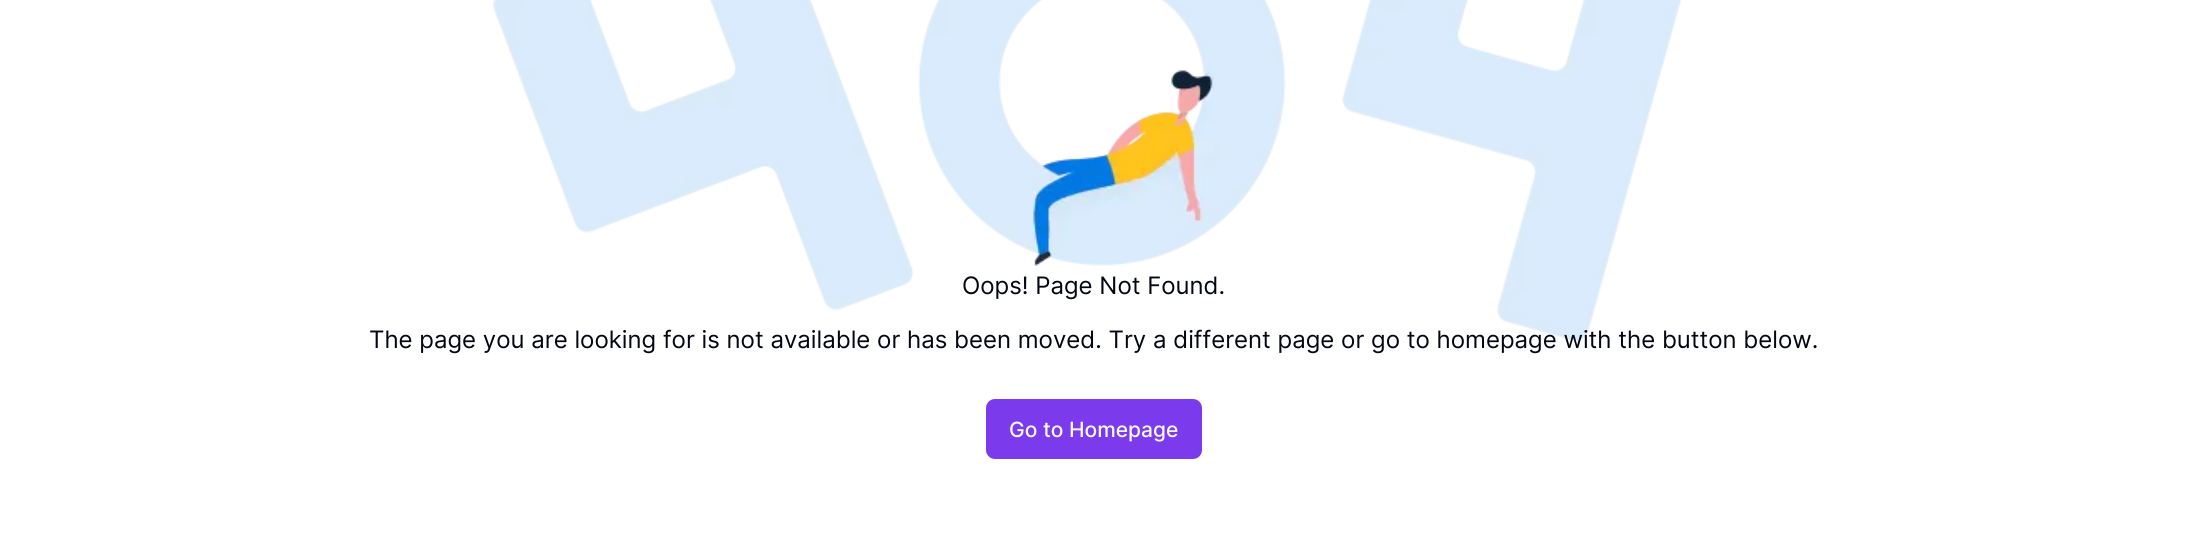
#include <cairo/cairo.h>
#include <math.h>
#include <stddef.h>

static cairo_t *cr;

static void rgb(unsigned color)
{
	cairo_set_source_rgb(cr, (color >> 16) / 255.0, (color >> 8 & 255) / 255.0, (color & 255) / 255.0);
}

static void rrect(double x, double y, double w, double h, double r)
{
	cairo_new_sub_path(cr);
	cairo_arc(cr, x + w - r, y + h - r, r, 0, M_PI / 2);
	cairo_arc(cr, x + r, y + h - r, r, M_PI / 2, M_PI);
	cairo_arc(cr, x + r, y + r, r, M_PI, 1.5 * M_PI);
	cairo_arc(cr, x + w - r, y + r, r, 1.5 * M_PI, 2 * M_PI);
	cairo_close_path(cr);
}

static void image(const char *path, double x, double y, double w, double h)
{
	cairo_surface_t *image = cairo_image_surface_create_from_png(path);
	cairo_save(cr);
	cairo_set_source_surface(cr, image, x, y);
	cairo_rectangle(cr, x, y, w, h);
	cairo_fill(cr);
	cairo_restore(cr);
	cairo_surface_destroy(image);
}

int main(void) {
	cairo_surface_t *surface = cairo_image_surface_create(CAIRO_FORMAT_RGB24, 2186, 533);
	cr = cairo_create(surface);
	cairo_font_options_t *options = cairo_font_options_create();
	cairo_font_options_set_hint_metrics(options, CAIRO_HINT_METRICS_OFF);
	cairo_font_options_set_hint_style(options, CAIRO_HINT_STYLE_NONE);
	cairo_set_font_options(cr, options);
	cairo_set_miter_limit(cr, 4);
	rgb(0xffffff);
	cairo_paint(cr);
	image("img/1.png", 493, 0, 1189, 341);
	rgb(0x7c3aed);
	rrect(986, 399, 216, 60, 9);
	cairo_fill(cr);
	cairo_select_font_face(cr, "Inter", CAIRO_FONT_SLANT_NORMAL, CAIRO_FONT_WEIGHT_NORMAL);
	cairo_set_font_size(cr, 24);
	rgb(0x030712);
	cairo_move_to(cr, 962, 294);
	cairo_show_text(cr, "Oops! Page Not Found.");
	cairo_move_to(cr, 369, 348);
	cairo_show_text(cr, "The page you are looking for is not available or has been moved. Try a different page or go to homepage with the button below.");
	cairo_select_font_face(cr, "Inter Medium", CAIRO_FONT_SLANT_NORMAL, CAIRO_FONT_WEIGHT_NORMAL);
	cairo_set_font_size(cr, 21);
	rgb(0xf9fafb);
	cairo_move_to(cr, 1009, 437);
	cairo_show_text(cr, "Go to Homepage");
	cairo_surface_write_to_png(surface, "page.png");
	cairo_font_options_destroy(options);
	cairo_destroy(cr);
	cairo_surface_destroy(surface);
	return 0;
}
